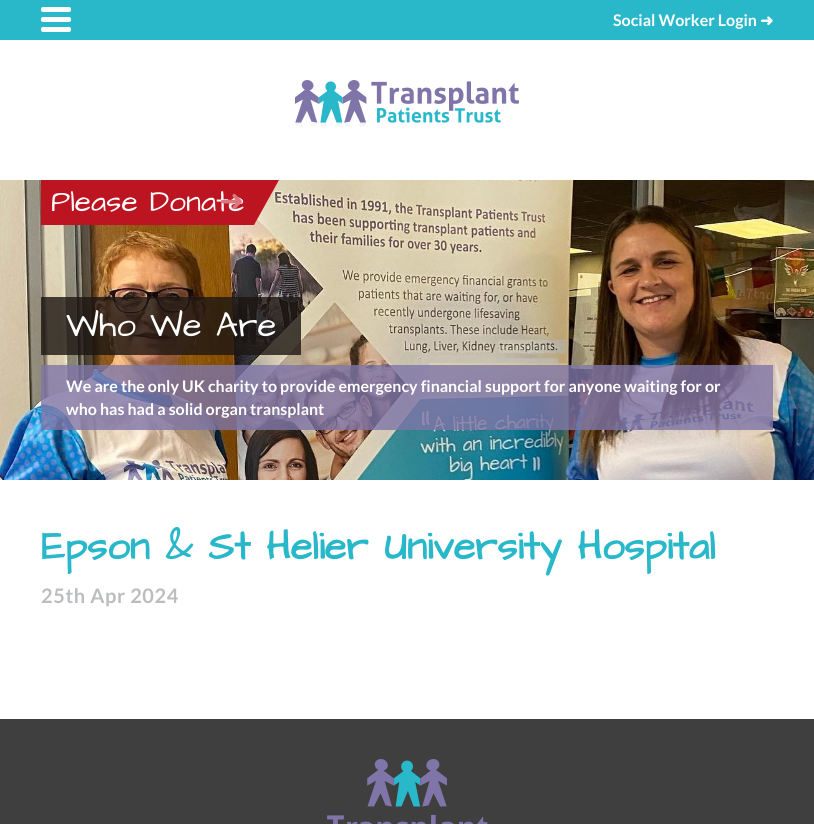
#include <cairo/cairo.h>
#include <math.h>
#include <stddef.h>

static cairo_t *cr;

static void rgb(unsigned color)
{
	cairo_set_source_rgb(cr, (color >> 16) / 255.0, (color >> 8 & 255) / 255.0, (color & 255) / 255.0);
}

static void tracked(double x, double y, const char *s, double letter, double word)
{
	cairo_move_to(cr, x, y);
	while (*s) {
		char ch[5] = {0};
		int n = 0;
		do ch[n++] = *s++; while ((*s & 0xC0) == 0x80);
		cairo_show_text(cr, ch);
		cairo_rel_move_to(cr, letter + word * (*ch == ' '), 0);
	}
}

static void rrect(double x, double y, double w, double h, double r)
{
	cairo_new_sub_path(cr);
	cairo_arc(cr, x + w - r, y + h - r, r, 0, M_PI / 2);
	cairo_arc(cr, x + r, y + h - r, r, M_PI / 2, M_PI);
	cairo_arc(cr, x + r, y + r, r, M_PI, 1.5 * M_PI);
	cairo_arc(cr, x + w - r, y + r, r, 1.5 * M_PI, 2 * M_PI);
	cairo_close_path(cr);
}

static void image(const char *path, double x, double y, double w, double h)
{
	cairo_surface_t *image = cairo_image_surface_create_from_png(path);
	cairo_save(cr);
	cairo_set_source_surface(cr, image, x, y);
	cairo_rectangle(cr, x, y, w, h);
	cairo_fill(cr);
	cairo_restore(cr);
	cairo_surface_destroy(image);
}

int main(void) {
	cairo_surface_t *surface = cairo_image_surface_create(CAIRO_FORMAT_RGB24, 814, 824);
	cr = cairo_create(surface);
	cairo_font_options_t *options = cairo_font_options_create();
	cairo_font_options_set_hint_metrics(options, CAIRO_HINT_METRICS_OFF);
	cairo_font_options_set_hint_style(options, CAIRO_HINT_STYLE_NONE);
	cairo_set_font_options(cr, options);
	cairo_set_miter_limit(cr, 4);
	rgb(0xffffff);
	cairo_paint(cr);
	rgb(0x28b8ca);
	cairo_rectangle(cr, 0, 0, 814, 40);
	cairo_fill(cr);
	rgb(0xfefefe);
	rrect(41, 7, 30, 5, 2);
	cairo_fill(cr);
	rrect(41, 17, 30, 5, 2);
	cairo_fill(cr);
	rrect(41, 27, 30, 5, 2);
	cairo_fill(cr);
	image("img/1.png", 295, 80, 224, 47);
	image("img/2.png", 0, 180, 814, 300);
	rgb(0xbd1421);
	cairo_rectangle(cr, 41, 180, 213, 45);
	cairo_fill(cr);
	cairo_new_path(cr);
	cairo_move_to(cr, 254, 180);
	cairo_line_to(cr, 279, 180);
	cairo_line_to(cr, 254, 225);
	cairo_close_path(cr);
	cairo_fill(cr);
	cairo_set_source_rgba(cr, 0.11, 0.086, 0.071, 0.8);
	cairo_rectangle(cr, 41, 297, 260, 58);
	cairo_fill(cr);
	cairo_set_source_rgba(cr, 0.498, 0.459, 0.659, 0.8);
	cairo_rectangle(cr, 41, 365, 732, 65);
	cairo_fill(cr);
	rgb(0x3f3f3f);
	cairo_rectangle(cr, 0, 719, 814, 105);
	cairo_fill(cr);
	image("img/3.png", 327, 759, 161, 65);
	cairo_select_font_face(cr, "Lato", CAIRO_FONT_SLANT_NORMAL, CAIRO_FONT_WEIGHT_BOLD);
	cairo_set_font_size(cr, 16);
	rgb(0xfefefe);
	cairo_move_to(cr, 613, 26);
	cairo_show_text(cr, "Social Worker Login");
	cairo_select_font_face(cr, "DejaVu Sans", CAIRO_FONT_SLANT_NORMAL, CAIRO_FONT_WEIGHT_BOLD);
	cairo_move_to(cr, 760, 26);
	cairo_show_text(cr, "➜");
	cairo_select_font_face(cr, "Architects Daughter", CAIRO_FONT_SLANT_NORMAL, CAIRO_FONT_WEIGHT_NORMAL);
	cairo_set_font_size(cr, 30);
	cairo_move_to(cr, 51, 211);
	cairo_show_text(cr, "Please Donate");
	cairo_select_font_face(cr, "DejaVu Sans", CAIRO_FONT_SLANT_NORMAL, CAIRO_FONT_WEIGHT_NORMAL);
	rgb(0xd9777f);
	cairo_move_to(cr, 219, 211);
	cairo_show_text(cr, "➜");
	cairo_select_font_face(cr, "Architects Daughter", CAIRO_FONT_SLANT_NORMAL, CAIRO_FONT_WEIGHT_NORMAL);
	cairo_set_font_size(cr, 35);
	rgb(0xfefefe);
	cairo_move_to(cr, 66, 336);
	cairo_show_text(cr, "Who We Are");
	cairo_select_font_face(cr, "Lato", CAIRO_FONT_SLANT_NORMAL, CAIRO_FONT_WEIGHT_BOLD);
	cairo_set_font_size(cr, 16);
	cairo_move_to(cr, 66, 392);
	cairo_show_text(cr, "We are the only UK charity to provide emergency financial support for anyone waiting for or");
	cairo_move_to(cr, 66, 415);
	cairo_show_text(cr, "who has had a solid organ transplant");
	cairo_select_font_face(cr, "Architects Daughter", CAIRO_FONT_SLANT_NORMAL, CAIRO_FONT_WEIGHT_BOLD);
	cairo_set_font_size(cr, 40);
	rgb(0x28b8ca);
	cairo_move_to(cr, 41, 559);
	cairo_show_text(cr, "Epson & St Helier University Hospital");
	cairo_select_font_face(cr, "Lato", CAIRO_FONT_SLANT_NORMAL, CAIRO_FONT_WEIGHT_BOLD);
	cairo_set_font_size(cr, 20);
	rgb(0xbbbdbf);
	tracked(41, 603, "25th Apr 2024", 0.6, 0);
	cairo_surface_write_to_png(surface, "page.png");
	cairo_font_options_destroy(options);
	cairo_destroy(cr);
	cairo_surface_destroy(surface);
	return 0;
}
